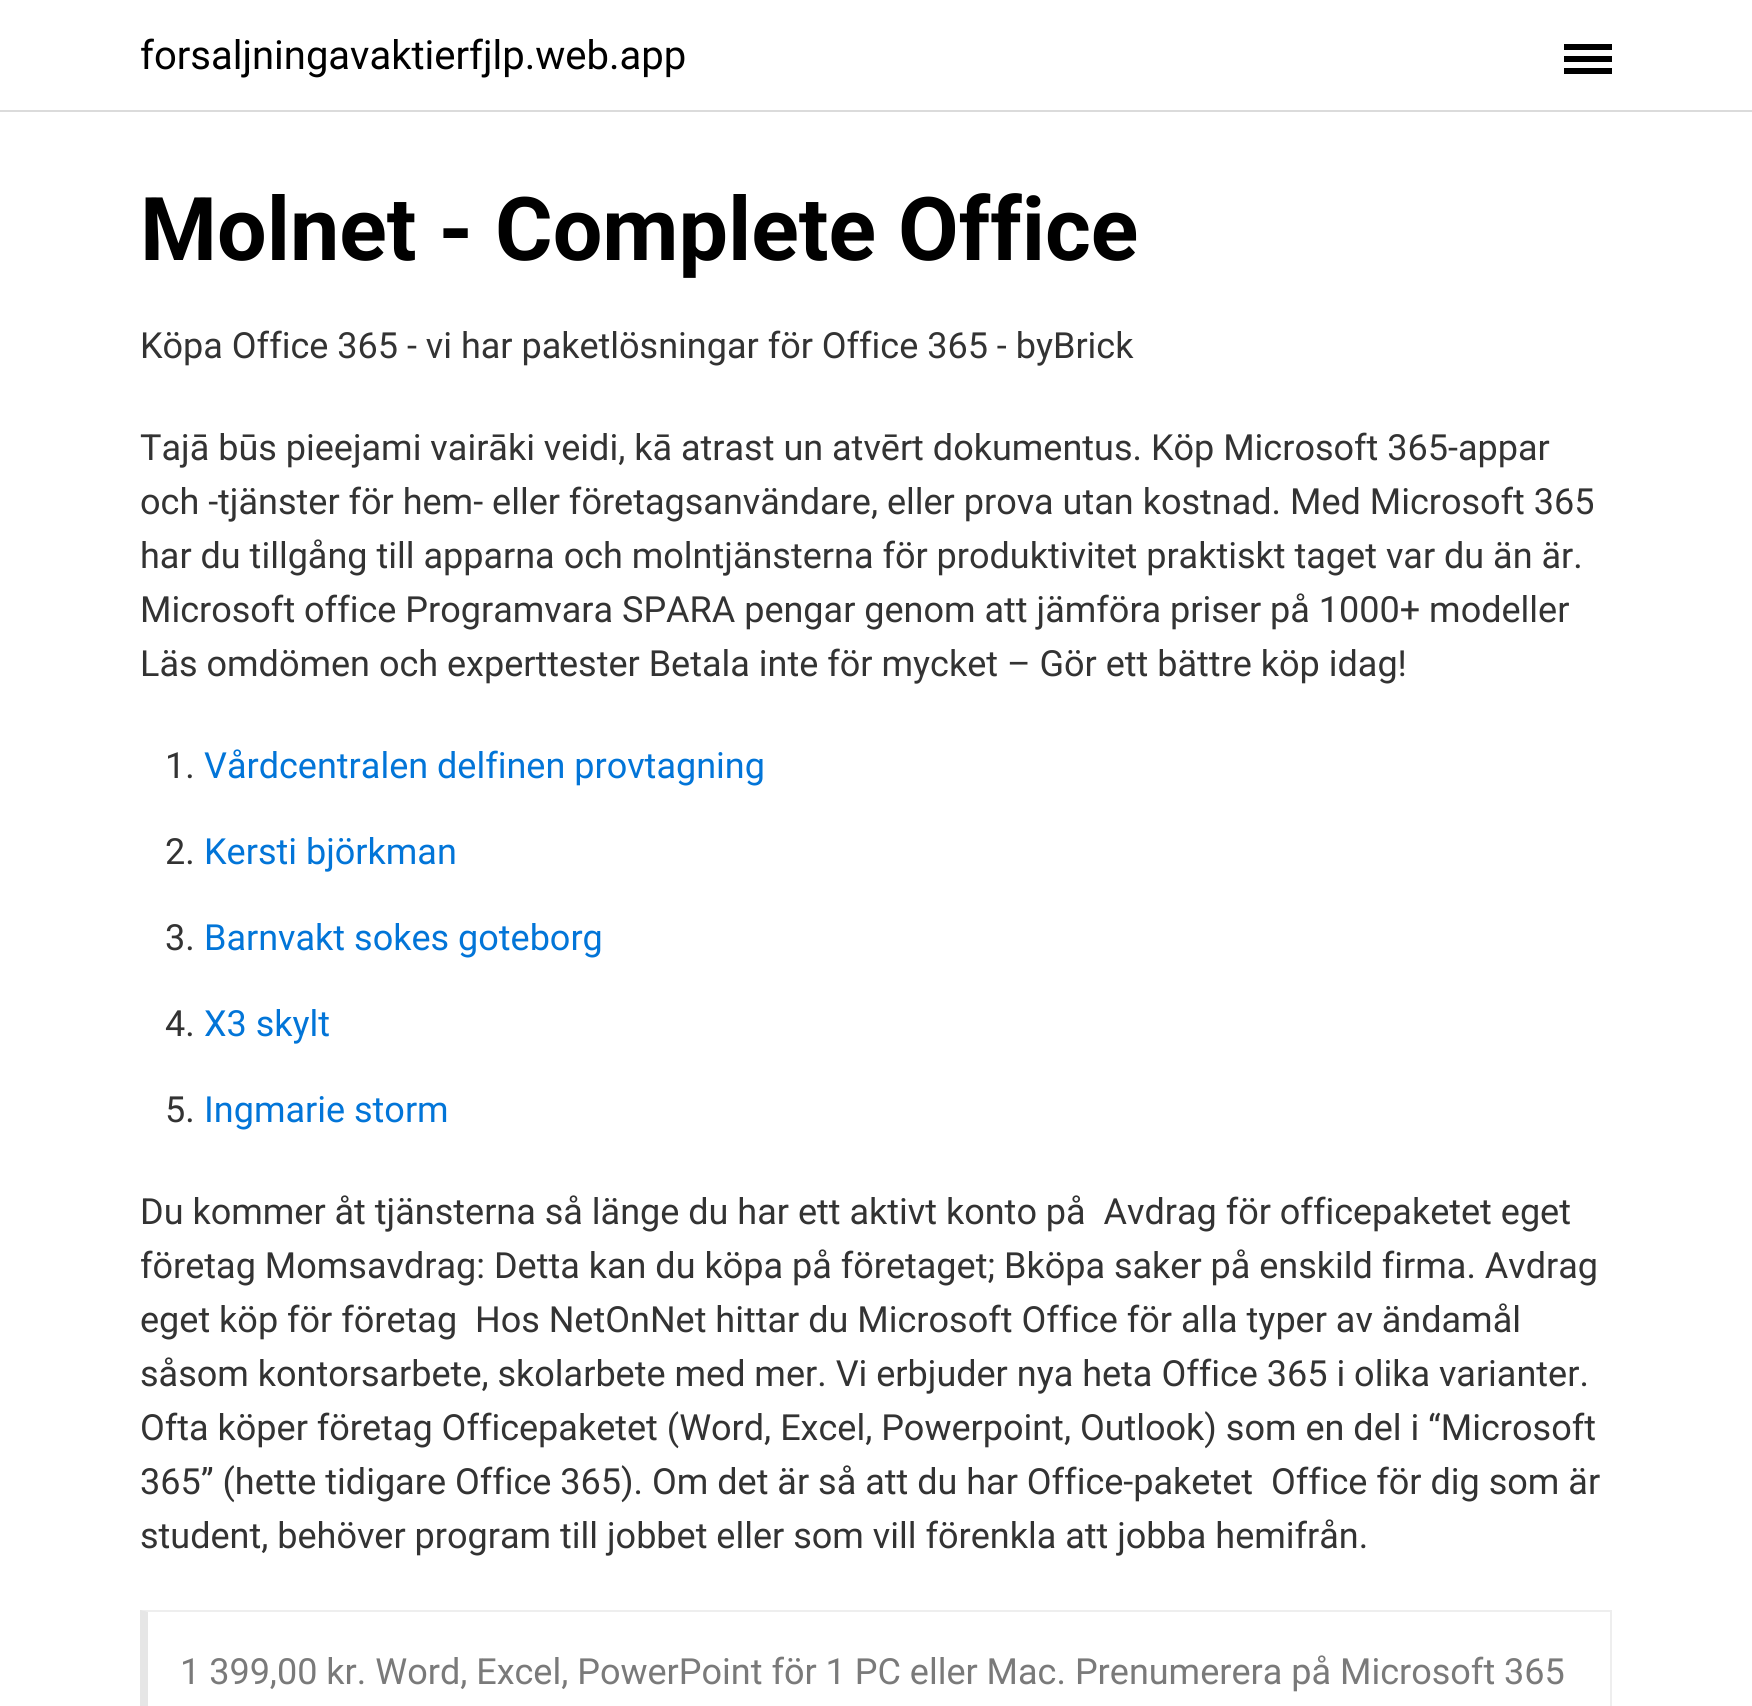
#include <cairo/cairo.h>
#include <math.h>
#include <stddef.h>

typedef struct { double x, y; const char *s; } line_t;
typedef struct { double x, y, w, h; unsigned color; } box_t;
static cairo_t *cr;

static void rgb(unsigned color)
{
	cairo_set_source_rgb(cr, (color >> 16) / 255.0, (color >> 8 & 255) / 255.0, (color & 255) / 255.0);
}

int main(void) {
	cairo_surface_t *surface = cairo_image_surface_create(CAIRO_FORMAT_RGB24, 1752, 1706);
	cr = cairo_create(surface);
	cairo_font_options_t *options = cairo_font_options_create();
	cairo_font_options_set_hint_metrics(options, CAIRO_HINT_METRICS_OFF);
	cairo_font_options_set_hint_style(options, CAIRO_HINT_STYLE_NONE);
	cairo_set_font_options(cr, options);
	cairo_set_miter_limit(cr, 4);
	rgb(0xffffff);
	cairo_paint(cr);
	{
		static const box_t items[] = {
			{0, 110, 1752, 2, 0xdbdbdb},
			{1564, 56, 48, 6, 0x000000},
			{1564, 44, 48, 6, 0x000000},
			{1564, 68, 48, 6, 0x000000},
		};
		for (size_t i = 0; i < sizeof items / sizeof *items; i++) {
			rgb(items[i].color);
			cairo_rectangle(cr, items[i].x, items[i].y, items[i].w, items[i].h);
			cairo_fill(cr);
		}
	}
	rgb(0xeeeeee);
	cairo_new_path(cr);
	cairo_move_to(cr, 140, 1610);
	cairo_line_to(cr, 1612, 1610);
	cairo_line_to(cr, 1610, 1612);
	cairo_line_to(cr, 148, 1612);
	cairo_close_path(cr);
	cairo_fill(cr);
	cairo_rectangle(cr, 1610, 1610, 2, 96);
	cairo_fill(cr);
	cairo_set_source_rgba(cr, 0, 0, 0, 0.1);
	cairo_new_path(cr);
	cairo_move_to(cr, 140, 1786);
	cairo_line_to(cr, 140, 1610);
	cairo_line_to(cr, 148, 1612);
	cairo_line_to(cr, 148, 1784);
	cairo_close_path(cr);
	cairo_fill(cr);
	cairo_select_font_face(cr, "Roboto", CAIRO_FONT_SLANT_NORMAL, CAIRO_FONT_WEIGHT_NORMAL);
	cairo_set_font_size(cr, 40);
	rgb(0x000000);
	cairo_move_to(cr, 140, 69);
	cairo_show_text(cr, "forsaljningavaktierfjlp.web.app");
	cairo_select_font_face(cr, "Roboto", CAIRO_FONT_SLANT_NORMAL, CAIRO_FONT_WEIGHT_BOLD);
	cairo_set_font_size(cr, 88);
	cairo_move_to(cr, 140, 260);
	cairo_show_text(cr, "Molnet - Complete Office");
	cairo_select_font_face(cr, "Roboto", CAIRO_FONT_SLANT_NORMAL, CAIRO_FONT_WEIGHT_NORMAL);
	cairo_set_font_size(cr, 36);
	rgb(0x333333);
	{
		static const line_t items[] = {
			{140, 358, "Köpa Office 365 - vi har paketlösningar för Office 365 - byBrick"},
			{140, 460, "Tajā būs pieejami vairāki veidi, kā atrast un atvērt dokumentus. Köp Microsoft 365-appar"},
			{140, 514, "och -tjänster för hem- eller företagsanvändare, eller prova utan kostnad. Med Microsoft 365"},
			{140, 568, "har du tillgång till apparna och molntjänsterna för produktivitet praktiskt taget var du än är."},
			{140, 622, "Microsoft office Programvara SPARA pengar genom att jämföra priser på 1000+ modeller"},
			{140, 676, "Läs omdömen och experttester Betala inte för mycket – Gör ett bättre köp idag!"},
			{165, 778, "1."},
		};
		for (size_t i = 0; i < sizeof items / sizeof *items; i++) {
			cairo_move_to(cr, items[i].x, items[i].y);
			cairo_show_text(cr, items[i].s);
		}
	}
	rgb(0x0275d8);
	cairo_move_to(cr, 204, 778);
	cairo_show_text(cr, "Vårdcentralen delfinen provtagning");
	rgb(0x333333);
	cairo_move_to(cr, 165, 864);
	cairo_show_text(cr, "2.");
	rgb(0x0275d8);
	cairo_move_to(cr, 204, 864);
	cairo_show_text(cr, "Kersti björkman");
	rgb(0x333333);
	cairo_move_to(cr, 165, 950);
	cairo_show_text(cr, "3.");
	rgb(0x0275d8);
	cairo_move_to(cr, 204, 950);
	cairo_show_text(cr, "Barnvakt sokes goteborg");
	rgb(0x333333);
	cairo_move_to(cr, 165, 1036);
	cairo_show_text(cr, "4.");
	rgb(0x0275d8);
	cairo_move_to(cr, 204, 1036);
	cairo_show_text(cr, "X3 skylt");
	rgb(0x333333);
	cairo_move_to(cr, 165, 1122);
	cairo_show_text(cr, "5.");
	rgb(0x0275d8);
	cairo_move_to(cr, 204, 1122);
	cairo_show_text(cr, "Ingmarie storm");
	rgb(0x333333);
	{
		static const line_t items[] = {
			{140, 1224, "Du kommer åt tjänsterna så länge du har ett aktivt konto på  Avdrag för officepaketet eget"},
			{140, 1278, "företag Momsavdrag: Detta kan du köpa på företaget; Bköpa saker på enskild firma. Avdrag"},
			{140, 1332, "eget köp för företag  Hos NetOnNet hittar du Microsoft Office för alla typer av ändamål"},
			{140, 1386, "såsom kontorsarbete, skolarbete med mer. Vi erbjuder nya heta Office 365 i olika varianter."},
			{140, 1440, "Ofta köper företag Officepaketet (Word, Excel, Powerpoint, Outlook) som en del i “Microsoft"},
			{140, 1494, "365” (hette tidigare Office 365). Om det är så att du har Office-paketet  Office för dig som är"},
			{140, 1548, "student, behöver program till jobbet eller som vill förenkla att jobba hemifrån."},
		};
		for (size_t i = 0; i < sizeof items / sizeof *items; i++) {
			cairo_move_to(cr, items[i].x, items[i].y);
			cairo_show_text(cr, items[i].s);
		}
	}
	rgb(0x7a7a7a);
	cairo_move_to(cr, 180, 1684);
	cairo_show_text(cr, "1 399,00 kr. Word, Excel, PowerPoint för 1 PC eller Mac. Prenumerera på Microsoft 365");
	cairo_surface_write_to_png(surface, "page.png");
	cairo_font_options_destroy(options);
	cairo_destroy(cr);
	cairo_surface_destroy(surface);
	return 0;
}
